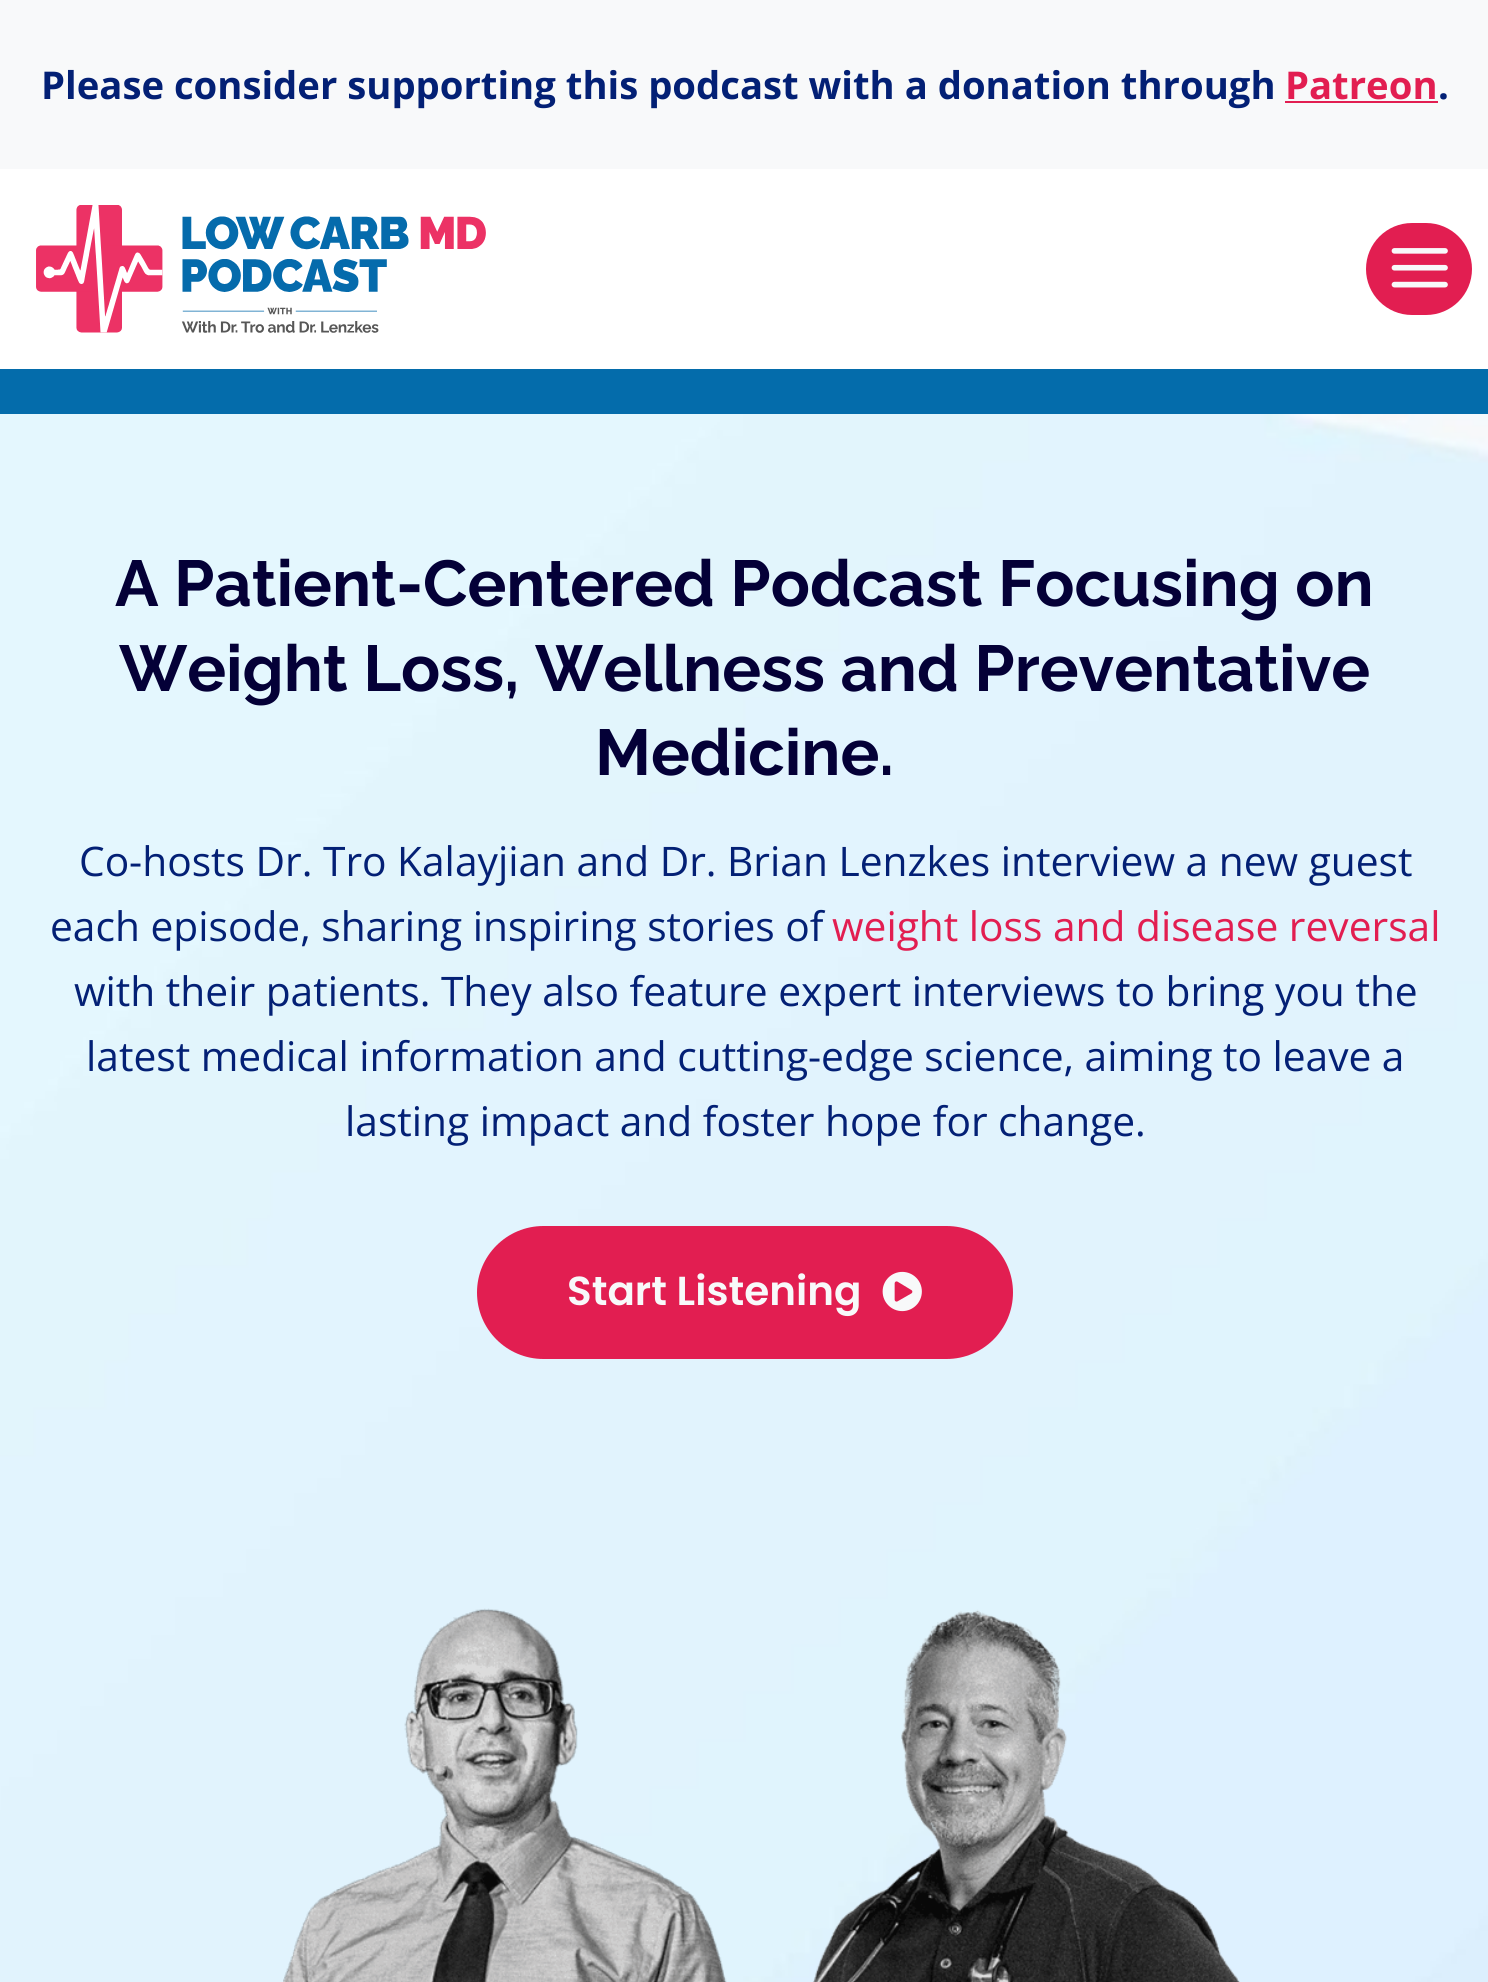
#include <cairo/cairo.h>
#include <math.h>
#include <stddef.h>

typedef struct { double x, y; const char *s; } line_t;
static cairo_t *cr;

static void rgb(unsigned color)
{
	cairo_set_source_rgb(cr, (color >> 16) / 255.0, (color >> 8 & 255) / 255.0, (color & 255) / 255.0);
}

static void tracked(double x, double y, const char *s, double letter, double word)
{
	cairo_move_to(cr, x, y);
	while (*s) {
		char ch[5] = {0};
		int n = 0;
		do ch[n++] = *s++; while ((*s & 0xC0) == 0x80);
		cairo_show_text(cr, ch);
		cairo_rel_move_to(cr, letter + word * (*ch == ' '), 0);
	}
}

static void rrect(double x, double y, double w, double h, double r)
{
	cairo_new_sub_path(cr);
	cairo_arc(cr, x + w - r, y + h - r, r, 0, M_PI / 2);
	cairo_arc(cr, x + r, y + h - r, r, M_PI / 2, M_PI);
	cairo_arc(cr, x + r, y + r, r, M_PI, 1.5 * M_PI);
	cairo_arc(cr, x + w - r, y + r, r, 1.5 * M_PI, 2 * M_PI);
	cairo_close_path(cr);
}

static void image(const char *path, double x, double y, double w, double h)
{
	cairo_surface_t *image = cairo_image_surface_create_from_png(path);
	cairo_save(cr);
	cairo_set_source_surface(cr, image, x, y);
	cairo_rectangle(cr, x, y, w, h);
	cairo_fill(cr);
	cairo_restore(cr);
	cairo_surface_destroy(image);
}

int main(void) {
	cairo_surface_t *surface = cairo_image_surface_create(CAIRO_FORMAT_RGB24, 1488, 1982);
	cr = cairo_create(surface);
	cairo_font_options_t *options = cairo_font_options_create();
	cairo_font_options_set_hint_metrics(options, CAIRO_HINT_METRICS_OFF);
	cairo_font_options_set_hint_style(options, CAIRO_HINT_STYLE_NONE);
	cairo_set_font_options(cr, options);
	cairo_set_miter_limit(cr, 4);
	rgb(0xffffff);
	cairo_paint(cr);
	rgb(0xf8f9fa);
	cairo_rectangle(cr, 0, 0, 1488, 169);
	cairo_fill(cr);
	rgb(0xe21e51);
	cairo_rectangle(cr, 1285, 101, 153, 2);
	cairo_fill(cr);
	image("img/1.png", 36, 205, 450, 128);
	rrect(1366, 223, 106, 92, 46);
	cairo_fill(cr);
	image("img/2.png", 1391, 248, 57, 40);
	image("img/3.png", 0, 414, 1488, 1568);
	rgb(0x046cab);
	cairo_rectangle(cr, 0, 369, 1488, 45);
	cairo_fill(cr);
	rgb(0xe21e51);
	rrect(477, 1226, 536, 133, 66.5);
	cairo_fill(cr);
	image("img/4.png", 882, 1271, 40, 41);
	image("img/5.png", 283, 1608, 957, 374);
	cairo_select_font_face(cr, "Open Sans", CAIRO_FONT_SLANT_NORMAL, CAIRO_FONT_WEIGHT_BOLD);
	cairo_set_font_size(cr, 38.25);
	rgb(0x032075);
	cairo_move_to(cr, 41, 99);
	cairo_show_text(cr, "Please consider supporting this podcast with a donation through");
	rgb(0xe21e51);
	cairo_move_to(cr, 1285, 99);
	cairo_show_text(cr, "Patreon");
	rgb(0x032075);
	cairo_move_to(cr, 1438, 99);
	cairo_show_text(cr, ".");
	cairo_select_font_face(cr, "Raleway", CAIRO_FONT_SLANT_NORMAL, CAIRO_FONT_WEIGHT_BOLD);
	cairo_set_font_size(cr, 64.8);
	rgb(0x040037);
	{
		static const line_t items[] = {
			{115, 606, "A Patient-Centered Podcast Focusing on"},
			{119, 691, "Weight Loss, Wellness and Preventative"},
			{595, 775, "Medicine."},
		};
		for (size_t i = 0; i < sizeof items / sizeof *items; i++) {
			cairo_move_to(cr, items[i].x, items[i].y);
			cairo_show_text(cr, items[i].s);
		}
	}
	cairo_select_font_face(cr, "Open Sans", CAIRO_FONT_SLANT_NORMAL, CAIRO_FONT_WEIGHT_NORMAL);
	cairo_set_font_size(cr, 40.7);
	rgb(0x032075);
	cairo_move_to(cr, 79, 876);
	cairo_show_text(cr, "Co-hosts Dr. Tro Kalayjian and Dr. Brian Lenzkes interview a new guest");
	cairo_move_to(cr, 50, 941);
	cairo_show_text(cr, "each episode, sharing inspiring stories of");
	rgb(0xe21e51);
	cairo_move_to(cr, 832, 941);
	cairo_show_text(cr, "weight loss and disease reversal");
	rgb(0x032075);
	cairo_move_to(cr, 74, 1006);
	cairo_show_text(cr, "with their patients. They also feature expert interviews to bring you the");
	tracked(86, 1071, "latest medical information and cutting-edge science, aiming to leave a", 0, -0.1);
	cairo_move_to(cr, 345, 1136);
	cairo_show_text(cr, "lasting impact and foster hope for change.");
	cairo_select_font_face(cr, "Poppins SemiBold", CAIRO_FONT_SLANT_NORMAL, CAIRO_FONT_WEIGHT_NORMAL);
	cairo_set_font_size(cr, 40.5);
	rgb(0xf8f9fa);
	cairo_move_to(cr, 567, 1305);
	cairo_show_text(cr, "Start Listening");
	cairo_surface_write_to_png(surface, "page.png");
	cairo_font_options_destroy(options);
	cairo_destroy(cr);
	cairo_surface_destroy(surface);
	return 0;
}
